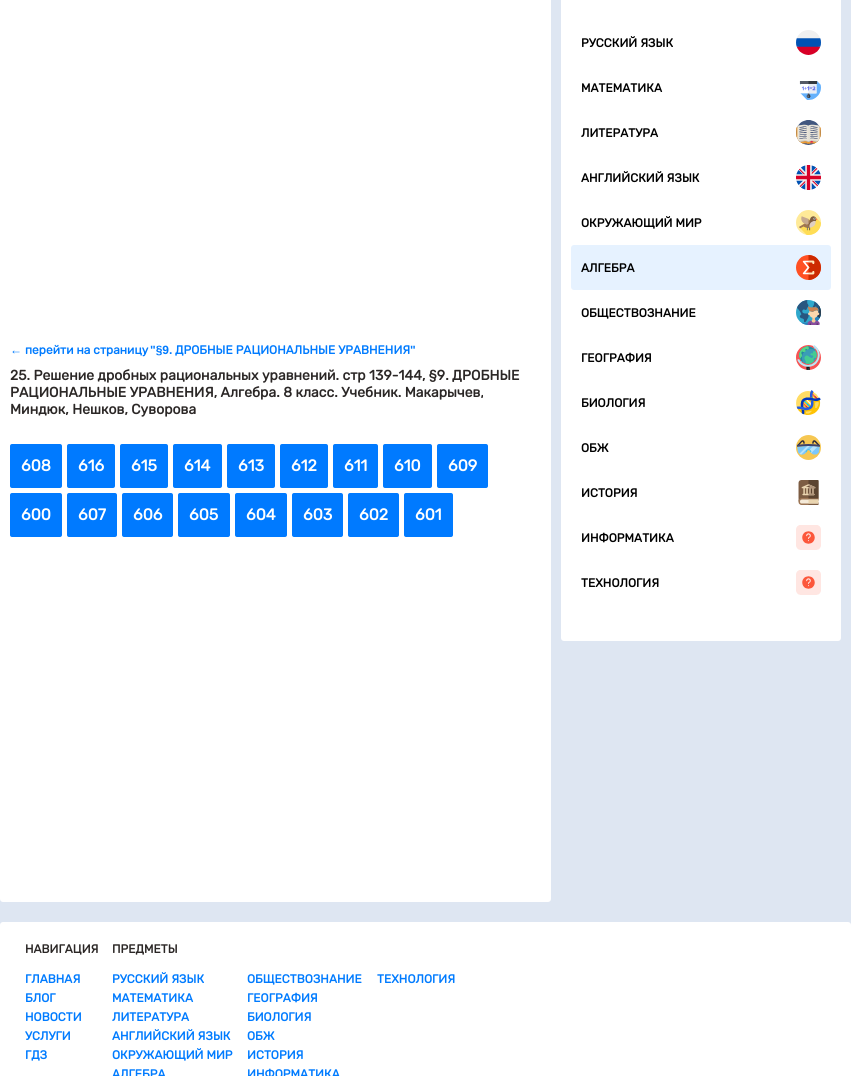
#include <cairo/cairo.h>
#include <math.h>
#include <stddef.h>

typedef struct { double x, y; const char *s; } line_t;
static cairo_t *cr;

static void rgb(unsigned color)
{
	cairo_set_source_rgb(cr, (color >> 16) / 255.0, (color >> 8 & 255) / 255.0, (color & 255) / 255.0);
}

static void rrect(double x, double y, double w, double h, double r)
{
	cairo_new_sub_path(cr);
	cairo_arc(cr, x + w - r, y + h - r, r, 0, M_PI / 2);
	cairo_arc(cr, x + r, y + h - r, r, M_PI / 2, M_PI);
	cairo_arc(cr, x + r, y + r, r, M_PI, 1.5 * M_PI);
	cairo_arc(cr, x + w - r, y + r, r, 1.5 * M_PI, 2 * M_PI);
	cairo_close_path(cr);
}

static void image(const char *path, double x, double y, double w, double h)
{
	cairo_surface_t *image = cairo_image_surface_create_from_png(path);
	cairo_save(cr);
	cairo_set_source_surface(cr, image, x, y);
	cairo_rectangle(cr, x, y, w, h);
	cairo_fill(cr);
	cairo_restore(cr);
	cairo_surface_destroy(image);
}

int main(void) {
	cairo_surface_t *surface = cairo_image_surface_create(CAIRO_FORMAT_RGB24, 851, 1076);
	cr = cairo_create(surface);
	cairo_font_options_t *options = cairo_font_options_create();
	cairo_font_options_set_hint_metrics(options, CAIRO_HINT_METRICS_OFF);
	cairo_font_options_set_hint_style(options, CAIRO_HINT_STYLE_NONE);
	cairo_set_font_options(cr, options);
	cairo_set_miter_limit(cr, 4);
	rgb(0xdee6f2);
	cairo_paint(cr);
	rgb(0xffffff);
	rrect(0, -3, 551, 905, 3);
	cairo_fill(cr);
	rgb(0x007aff);
	rrect(10, 444, 52, 44, 2);
	cairo_fill(cr);
	rrect(67, 444, 48, 44, 2);
	cairo_fill(cr);
	rrect(120, 444, 48, 44, 2);
	cairo_fill(cr);
	rrect(173, 444, 49, 44, 2);
	cairo_fill(cr);
	rrect(227, 444, 48, 44, 2);
	cairo_fill(cr);
	rrect(280, 444, 48, 44, 2);
	cairo_fill(cr);
	rrect(333, 444, 45, 44, 2);
	cairo_fill(cr);
	rrect(383, 444, 49, 44, 2);
	cairo_fill(cr);
	rrect(437, 444, 51, 44, 2);
	cairo_fill(cr);
	rrect(10, 493, 52, 44, 2);
	cairo_fill(cr);
	rrect(67, 493, 50, 44, 2);
	cairo_fill(cr);
	rrect(122, 493, 51, 44, 2);
	cairo_fill(cr);
	rrect(178, 493, 52, 44, 2);
	cairo_fill(cr);
	rrect(235, 493, 52, 44, 2);
	cairo_fill(cr);
	rrect(292, 493, 51, 44, 2);
	cairo_fill(cr);
	rrect(348, 493, 51, 44, 2);
	cairo_fill(cr);
	rrect(404, 493, 49, 44, 2);
	cairo_fill(cr);
	rgb(0xffffff);
	rrect(561, -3, 280, 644, 3);
	cairo_fill(cr);
	image("img/1.png", 796, 30, 25, 25);
	image("img/2.png", 799, 81, 22, 19);
	image("img/3.png", 796, 120, 25, 25);
	image("img/4.png", 796, 165, 25, 25);
	image("img/5.png", 796, 210, 25, 25);
	rgb(0xe6f2ff);
	rrect(571, 245, 260, 45, 3);
	cairo_fill(cr);
	image("img/6.png", 796, 255, 25, 25);
	image("img/7.png", 796, 300, 25, 25);
	image("img/8.png", 796, 345, 25, 25);
	image("img/9.png", 796, 390, 25, 25);
	image("img/10.png", 796, 435, 25, 25);
	image("img/11.png", 798, 480, 21, 25);
	image("img/12.png", 796, 525, 25, 25);
	image("img/12.png", 796, 570, 25, 25);
	rgb(0xffffff);
	rrect(0, 922, 851, 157, 3);
	cairo_fill(cr);
	cairo_select_font_face(cr, "Rubik", CAIRO_FONT_SLANT_NORMAL, CAIRO_FONT_WEIGHT_BOLD);
	cairo_set_font_size(cr, 12);
	rgb(0x007bff);
	cairo_move_to(cr, 25, 354);
	cairo_show_text(cr, "перейти на страницу");
	cairo_select_font_face(cr, "Liberation Sans", CAIRO_FONT_SLANT_NORMAL, CAIRO_FONT_WEIGHT_BOLD);
	cairo_move_to(cr, 150, 354);
	cairo_show_text(cr, "\"§9.");
	cairo_select_font_face(cr, "Rubik", CAIRO_FONT_SLANT_NORMAL, CAIRO_FONT_WEIGHT_BOLD);
	cairo_move_to(cr, 175, 354);
	cairo_show_text(cr, "ДРОБНЫЕ РАЦИОНАЛЬНЫЕ УРАВНЕНИЯ");
	cairo_select_font_face(cr, "Liberation Sans", CAIRO_FONT_SLANT_NORMAL, CAIRO_FONT_WEIGHT_BOLD);
	cairo_move_to(cr, 410, 354);
	cairo_show_text(cr, "\"");
	cairo_move_to(cr, 10, 354);
	cairo_show_text(cr, "←");
	cairo_select_font_face(cr, "Rubik", CAIRO_FONT_SLANT_NORMAL, CAIRO_FONT_WEIGHT_BOLD);
	cairo_set_font_size(cr, 14);
	rgb(0x2b2726);
	{
		static const line_t items[] = {
			{10, 380, "25. Решение дробных рациональных уравнений. стр 139-144, §9. ДРОБНЫЕ"},
			{10, 397, "РАЦИОНАЛЬНЫЕ УРАВНЕНИЯ, Алгебра. 8 класс. Учебник. Макарычев,"},
			{10, 414, "Миндюк, Нешков, Суворова"},
		};
		for (size_t i = 0; i < sizeof items / sizeof *items; i++) {
			cairo_move_to(cr, items[i].x, items[i].y);
			cairo_show_text(cr, items[i].s);
		}
	}
	cairo_set_font_size(cr, 16);
	rgb(0xffffff);
	{
		static const line_t items[] = {
			{21, 471, "608"},
			{78, 471, "616"},
			{131, 471, "615"},
			{184, 471, "614"},
			{238, 471, "613"},
			{291, 471, "612"},
			{344, 471, "611"},
			{394, 471, "610"},
			{448, 471, "609"},
			{21, 520, "600"},
			{78, 520, "607"},
			{133, 520, "606"},
			{189, 520, "605"},
			{246, 520, "604"},
			{303, 520, "603"},
			{359, 520, "602"},
			{415, 520, "601"},
		};
		for (size_t i = 0; i < sizeof items / sizeof *items; i++) {
			cairo_move_to(cr, items[i].x, items[i].y);
			cairo_show_text(cr, items[i].s);
		}
	}
	cairo_set_font_size(cr, 12);
	rgb(0x000000);
	{
		static const line_t items[] = {
			{581, 47, "РУССКИЙ ЯЗЫК"},
			{581, 92, "МАТЕМАТИКА"},
			{581, 137, "ЛИТЕРАТУРА"},
			{581, 182, "АНГЛИЙСКИЙ ЯЗЫК"},
			{581, 227, "ОКРУЖАЮЩИЙ МИР"},
			{581, 272, "АЛГЕБРА"},
			{581, 317, "ОБЩЕСТВОЗНАНИЕ"},
			{581, 362, "ГЕОГРАФИЯ"},
			{581, 407, "БИОЛОГИЯ"},
			{581, 452, "ОБЖ"},
			{581, 497, "ИСТОРИЯ"},
			{581, 542, "ИНФОРМАТИКА"},
			{581, 587, "ТЕХНОЛОГИЯ"},
		};
		for (size_t i = 0; i < sizeof items / sizeof *items; i++) {
			cairo_move_to(cr, items[i].x, items[i].y);
			cairo_show_text(cr, items[i].s);
		}
	}
	rgb(0x2b2726);
	cairo_move_to(cr, 25, 953);
	cairo_show_text(cr, "НАВИГАЦИЯ");
	rgb(0x007bff);
	{
		static const line_t items[] = {
			{25, 983, "ГЛАВНАЯ"},
			{25, 1002, "БЛОГ"},
			{25, 1021, "НОВОСТИ"},
			{25, 1040, "УСЛУГИ"},
			{25, 1059, "ГДЗ"},
		};
		for (size_t i = 0; i < sizeof items / sizeof *items; i++) {
			cairo_move_to(cr, items[i].x, items[i].y);
			cairo_show_text(cr, items[i].s);
		}
	}
	rgb(0x2b2726);
	cairo_move_to(cr, 112, 953);
	cairo_show_text(cr, "ПРЕДМЕТЫ");
	rgb(0x007bff);
	{
		static const line_t items[] = {
			{112, 983, "РУССКИЙ ЯЗЫК"},
			{247, 983, "ОБЩЕСТВОЗНАНИЕ"},
			{377, 983, "ТЕХНОЛОГИЯ"},
			{112, 1002, "МАТЕМАТИКА"},
			{247, 1002, "ГЕОГРАФИЯ"},
			{112, 1021, "ЛИТЕРАТУРА"},
			{247, 1021, "БИОЛОГИЯ"},
			{112, 1040, "АНГЛИЙСКИЙ ЯЗЫК"},
			{247, 1040, "ОБЖ"},
			{112, 1059, "ОКРУЖАЮЩИЙ МИР"},
			{247, 1059, "ИСТОРИЯ"},
			{112, 1078, "АЛГЕБРА"},
			{247, 1078, "ИНФОРМАТИКА"},
		};
		for (size_t i = 0; i < sizeof items / sizeof *items; i++) {
			cairo_move_to(cr, items[i].x, items[i].y);
			cairo_show_text(cr, items[i].s);
		}
	}
	cairo_surface_write_to_png(surface, "page.png");
	cairo_font_options_destroy(options);
	cairo_destroy(cr);
	cairo_surface_destroy(surface);
	return 0;
}
